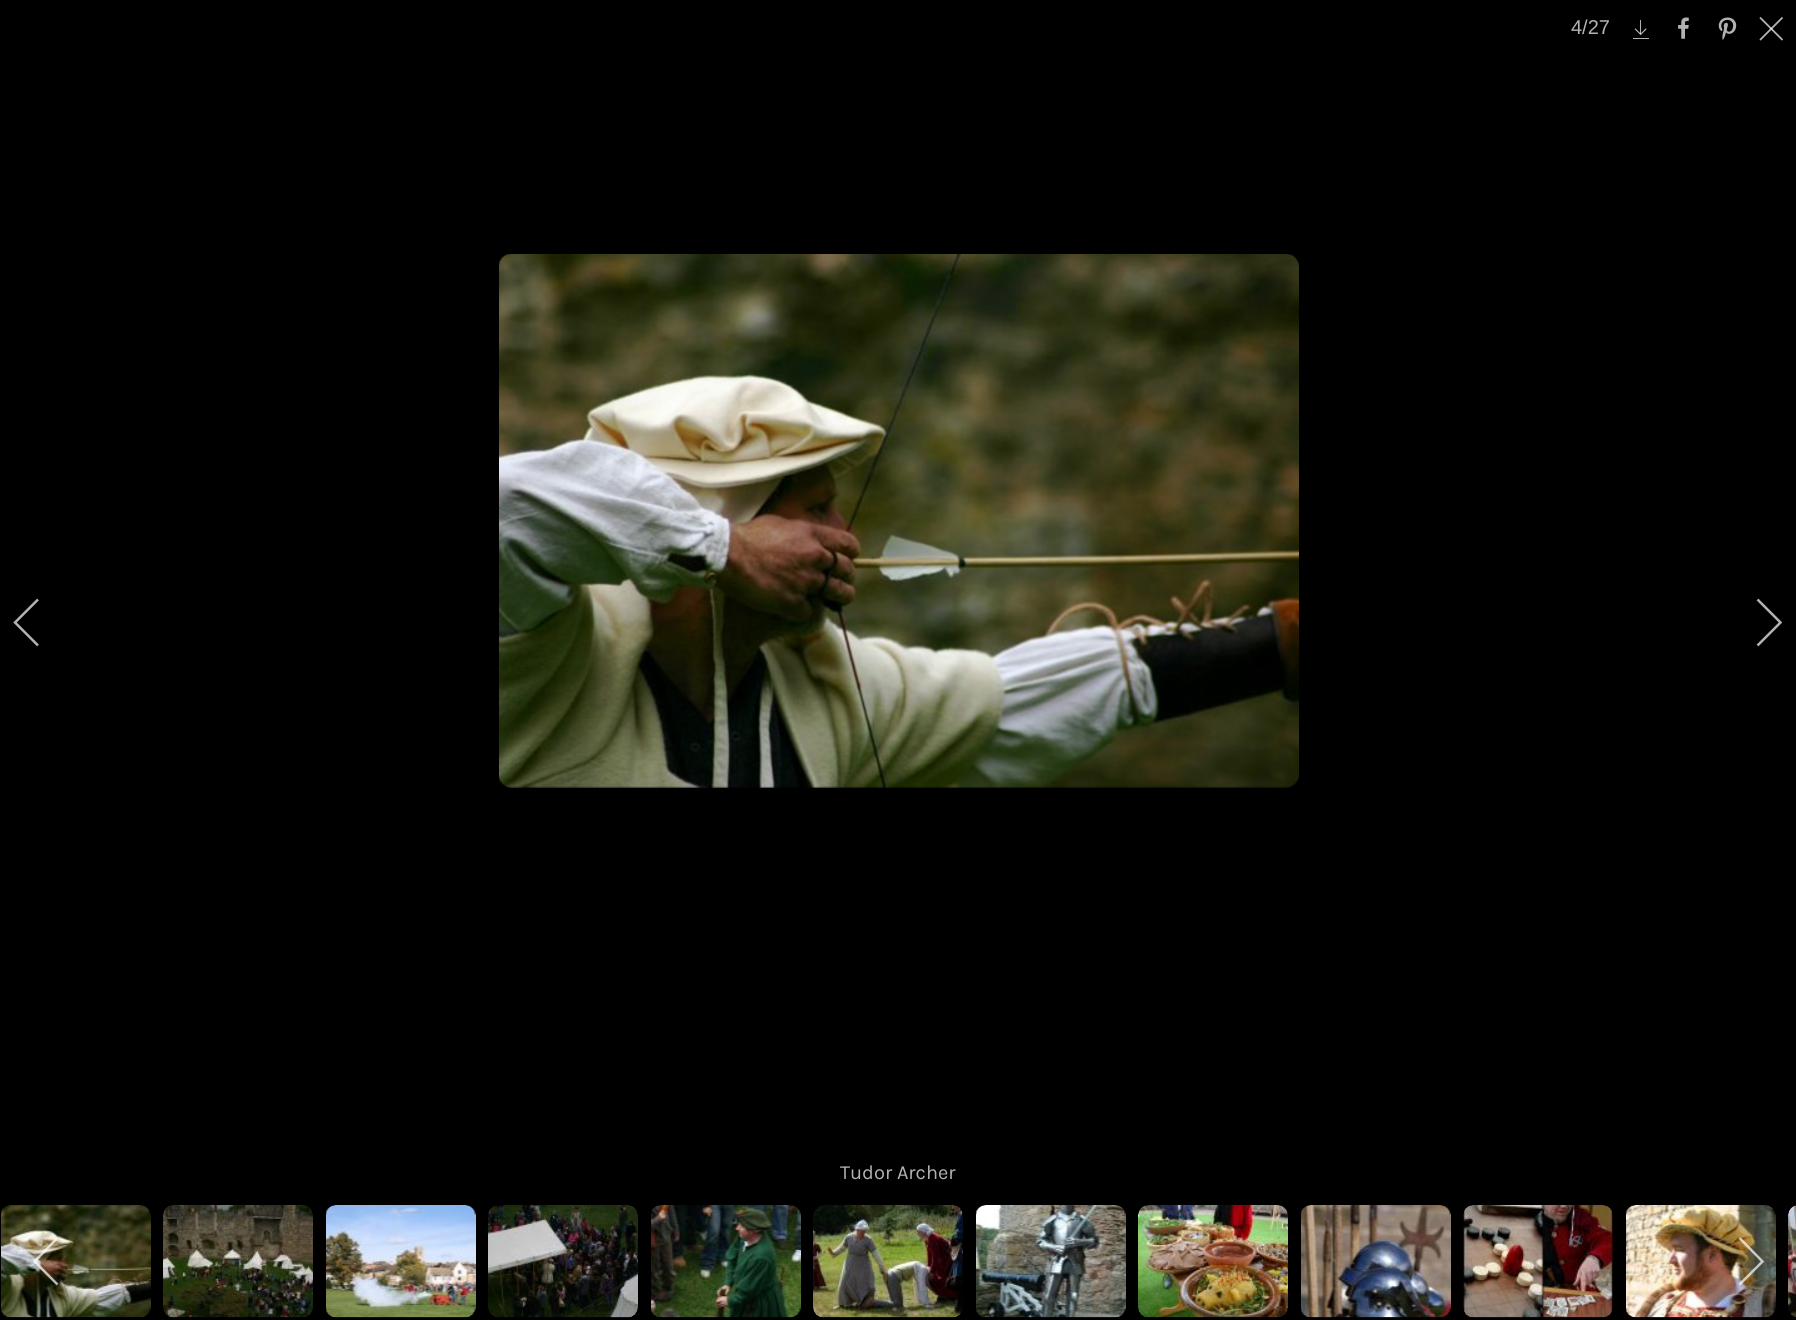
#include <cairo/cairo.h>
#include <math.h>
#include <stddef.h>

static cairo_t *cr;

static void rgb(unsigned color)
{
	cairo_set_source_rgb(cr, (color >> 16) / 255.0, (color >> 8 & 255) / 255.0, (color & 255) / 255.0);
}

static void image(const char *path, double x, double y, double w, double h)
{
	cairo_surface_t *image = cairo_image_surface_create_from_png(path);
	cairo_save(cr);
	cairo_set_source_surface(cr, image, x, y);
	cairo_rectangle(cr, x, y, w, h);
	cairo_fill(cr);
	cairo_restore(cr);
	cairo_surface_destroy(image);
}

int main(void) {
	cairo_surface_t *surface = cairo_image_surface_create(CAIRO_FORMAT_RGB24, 1796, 1320);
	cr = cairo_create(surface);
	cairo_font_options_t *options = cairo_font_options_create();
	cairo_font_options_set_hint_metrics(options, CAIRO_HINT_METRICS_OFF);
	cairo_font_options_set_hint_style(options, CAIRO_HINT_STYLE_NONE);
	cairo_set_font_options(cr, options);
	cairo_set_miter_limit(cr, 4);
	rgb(0x000000);
	cairo_paint(cr);
	image("img/1.png", 1633, 20, 16, 19);
	image("img/2.png", 1678, 17, 11, 22);
	image("img/3.png", 1718, 17, 19, 23);
	cairo_new_path(cr);
	cairo_move_to(cr, 1760, 17.5);
	cairo_line_to(cr, 1782.5, 40);
	rgb(0xb3b3b3);
	cairo_set_line_width(cr, 1.8);
	cairo_stroke(cr);
	cairo_new_path(cr);
	cairo_move_to(cr, 1782.5, 17.5);
	cairo_line_to(cr, 1760, 40);
	cairo_set_source_rgba(cr, 1, 1, 1, 0.7);
	cairo_stroke(cr);
	cairo_new_path(cr);
	cairo_move_to(cr, 38, 599.5);
	cairo_line_to(cr, 15, 622.5);
	cairo_line_to(cr, 38, 645.5);
	rgb(0xb3b3b3);
	cairo_set_line_width(cr, 2.5);
	cairo_stroke(cr);
	image("img/4.png", 499, 254, 800, 534);
	cairo_new_path(cr);
	cairo_move_to(cr, 1757.5, 645.5);
	cairo_line_to(cr, 1780.5, 622.5);
	cairo_line_to(cr, 1757.5, 599.5);
	cairo_stroke(cr);
	image("img/5.png", 1, 1205, 150, 113);
	image("img/6.png", 163, 1205, 150, 113);
	image("img/7.png", 326, 1205, 150, 113);
	image("img/8.png", 488, 1205, 150, 113);
	image("img/9.png", 651, 1205, 150, 113);
	image("img/10.png", 813, 1205, 150, 113);
	image("img/11.png", 976, 1205, 150, 113);
	image("img/12.png", 1138, 1205, 150, 113);
	image("img/13.png", 1301, 1205, 150, 113);
	image("img/14.png", 1463, 1205, 150, 113);
	image("img/15.png", 1626, 1205, 150, 113);
	image("img/16.png", 1788, 1205, 8, 112);
	cairo_new_path(cr);
	cairo_move_to(cr, 57.5, 1238);
	cairo_line_to(cr, 34.5, 1261.5);
	cairo_line_to(cr, 57.5, 1284.5);
	cairo_set_source_rgba(cr, 1, 1, 1, 0.7);
	cairo_stroke(cr);
	cairo_new_path(cr);
	cairo_move_to(cr, 1739.5, 1284.5);
	cairo_line_to(cr, 1762.5, 1261.5);
	cairo_line_to(cr, 1739.5, 1238);
	cairo_stroke(cr);
	cairo_select_font_face(cr, "Liberation Sans", CAIRO_FONT_SLANT_NORMAL, CAIRO_FONT_WEIGHT_NORMAL);
	cairo_set_font_size(cr, 20);
	rgb(0xb3b3b3);
	cairo_move_to(cr, 1571, 34);
	cairo_show_text(cr, "4/27");
	cairo_select_font_face(cr, "Karla", CAIRO_FONT_SLANT_NORMAL, CAIRO_FONT_WEIGHT_NORMAL);
	cairo_move_to(cr, 840, 1179);
	cairo_show_text(cr, "Tudor Archer");
	cairo_surface_write_to_png(surface, "page.png");
	cairo_font_options_destroy(options);
	cairo_destroy(cr);
	cairo_surface_destroy(surface);
	return 0;
}
